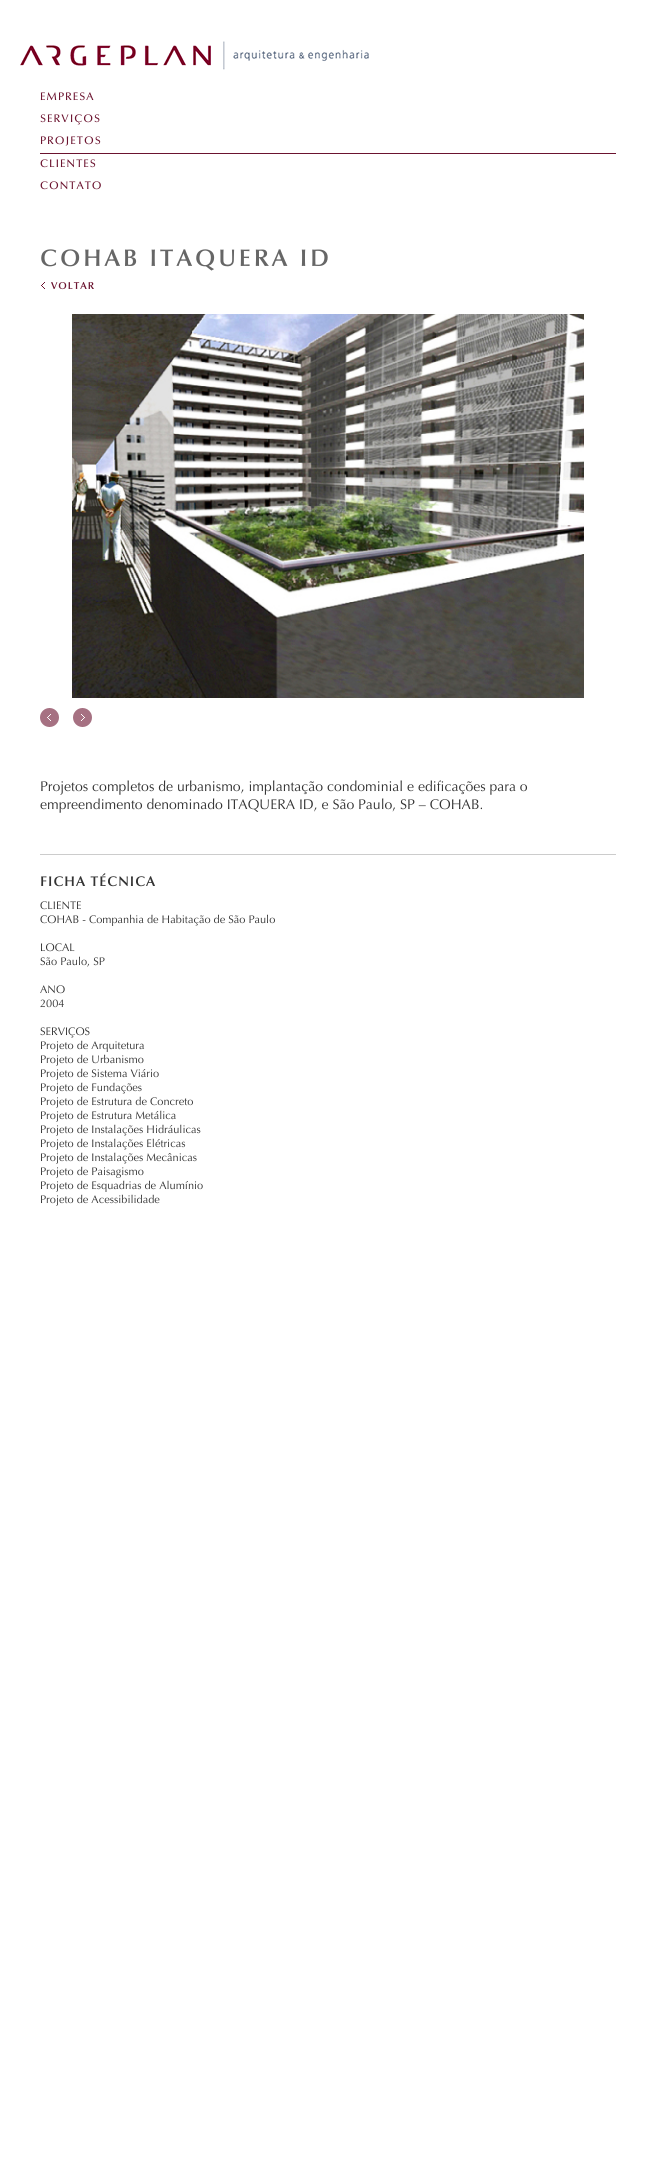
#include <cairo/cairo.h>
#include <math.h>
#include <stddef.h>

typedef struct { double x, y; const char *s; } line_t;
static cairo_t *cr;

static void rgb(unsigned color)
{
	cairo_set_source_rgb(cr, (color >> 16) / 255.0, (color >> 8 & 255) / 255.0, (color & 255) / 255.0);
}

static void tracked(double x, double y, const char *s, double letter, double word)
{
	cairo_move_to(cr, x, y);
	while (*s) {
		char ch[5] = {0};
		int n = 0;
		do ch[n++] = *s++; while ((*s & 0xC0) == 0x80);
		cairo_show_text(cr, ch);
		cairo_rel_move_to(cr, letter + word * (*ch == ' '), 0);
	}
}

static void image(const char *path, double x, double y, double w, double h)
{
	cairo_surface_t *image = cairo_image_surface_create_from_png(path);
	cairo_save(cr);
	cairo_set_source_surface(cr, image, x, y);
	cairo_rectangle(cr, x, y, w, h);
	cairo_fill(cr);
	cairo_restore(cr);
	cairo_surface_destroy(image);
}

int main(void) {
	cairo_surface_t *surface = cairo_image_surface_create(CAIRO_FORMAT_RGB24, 656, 2160);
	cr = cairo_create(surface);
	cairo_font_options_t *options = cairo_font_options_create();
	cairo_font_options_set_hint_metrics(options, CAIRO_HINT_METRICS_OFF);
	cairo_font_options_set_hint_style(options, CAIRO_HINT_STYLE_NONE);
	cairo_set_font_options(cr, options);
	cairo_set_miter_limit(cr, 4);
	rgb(0xffffff);
	cairo_paint(cr);
	image("img/1.png", 20, 41, 349, 29);
	rgb(0x6b132f);
	cairo_rectangle(cr, 40, 153, 576, 1);
	cairo_fill(cr);
	image("img/2.png", 41, 282, 4, 7);
	image("img/3.png", 72, 314, 512, 384);
	image("img/4.png", 40, 708, 19, 19);
	image("img/5.png", 73, 708, 19, 19);
	rgb(0xcccccc);
	cairo_rectangle(cr, 40, 854, 576, 1);
	cairo_fill(cr);
	cairo_select_font_face(cr, "Optima Medium", CAIRO_FONT_SLANT_NORMAL, CAIRO_FONT_WEIGHT_NORMAL);
	cairo_set_font_size(cr, 11);
	rgb(0x6b132f);
	{
		static const line_t items[] = {
			{40, 100, "EMPRESA"},
			{40, 122, "SERVIÇOS"},
			{40, 144, "PROJETOS"},
			{40, 167, "CLIENTES"},
			{40, 189, "CONTATO"},
		};
		for (size_t i = 0; i < sizeof items / sizeof *items; i++) {
			tracked(items[i].x, items[i].y, items[i].s, 1, 0);
		}
	}
	cairo_select_font_face(cr, "Optima SemiBold", CAIRO_FONT_SLANT_NORMAL, CAIRO_FONT_WEIGHT_NORMAL);
	cairo_set_font_size(cr, 24);
	rgb(0x666666);
	tracked(40, 266, "COHAB ITAQUERA ID", 3, 0);
	cairo_set_font_size(cr, 10);
	rgb(0x6b132f);
	tracked(51, 289, "VOLTAR", 1, 0);
	cairo_select_font_face(cr, "Optima", CAIRO_FONT_SLANT_NORMAL, CAIRO_FONT_WEIGHT_NORMAL);
	cairo_set_font_size(cr, 14);
	rgb(0x333333);
	cairo_move_to(cr, 40, 791);
	cairo_show_text(cr, "Projetos completos de urbanismo, implantação condominial e edificações para o");
	cairo_move_to(cr, 40, 809);
	cairo_show_text(cr, "empreendimento denominado ITAQUERA ID, e São Paulo, SP – COHAB.");
	cairo_select_font_face(cr, "Optima SemiBold", CAIRO_FONT_SLANT_NORMAL, CAIRO_FONT_WEIGHT_NORMAL);
	tracked(40, 886, "FICHA TÉCNICA", 1, 0);
	cairo_select_font_face(cr, "Optima", CAIRO_FONT_SLANT_NORMAL, CAIRO_FONT_WEIGHT_NORMAL);
	cairo_set_font_size(cr, 11);
	{
		static const line_t items[] = {
			{40, 909, "CLIENTE"},
			{40, 923, "COHAB - Companhia de Habitação de São Paulo"},
			{40, 951, "LOCAL"},
			{40, 965, "São Paulo, SP"},
			{40, 993, "ANO"},
			{40, 1007, "2004"},
			{40, 1035, "SERVIÇOS"},
			{40, 1049, "Projeto de Arquitetura"},
			{40, 1063, "Projeto de Urbanismo"},
			{40, 1077, "Projeto de Sistema Viário"},
			{40, 1091, "Projeto de Fundações"},
			{40, 1105, "Projeto de Estrutura de Concreto"},
			{40, 1119, "Projeto de Estrutura Metálica"},
			{40, 1133, "Projeto de Instalações Hidráulicas"},
			{40, 1147, "Projeto de Instalações Elétricas"},
			{40, 1161, "Projeto de Instalações Mecânicas"},
			{40, 1175, "Projeto de Paisagismo"},
			{40, 1189, "Projeto de Esquadrias de Alumínio"},
			{40, 1203, "Projeto de Acessibilidade"},
		};
		for (size_t i = 0; i < sizeof items / sizeof *items; i++) {
			cairo_move_to(cr, items[i].x, items[i].y);
			cairo_show_text(cr, items[i].s);
		}
	}
	cairo_surface_write_to_png(surface, "page.png");
	cairo_font_options_destroy(options);
	cairo_destroy(cr);
	cairo_surface_destroy(surface);
	return 0;
}
